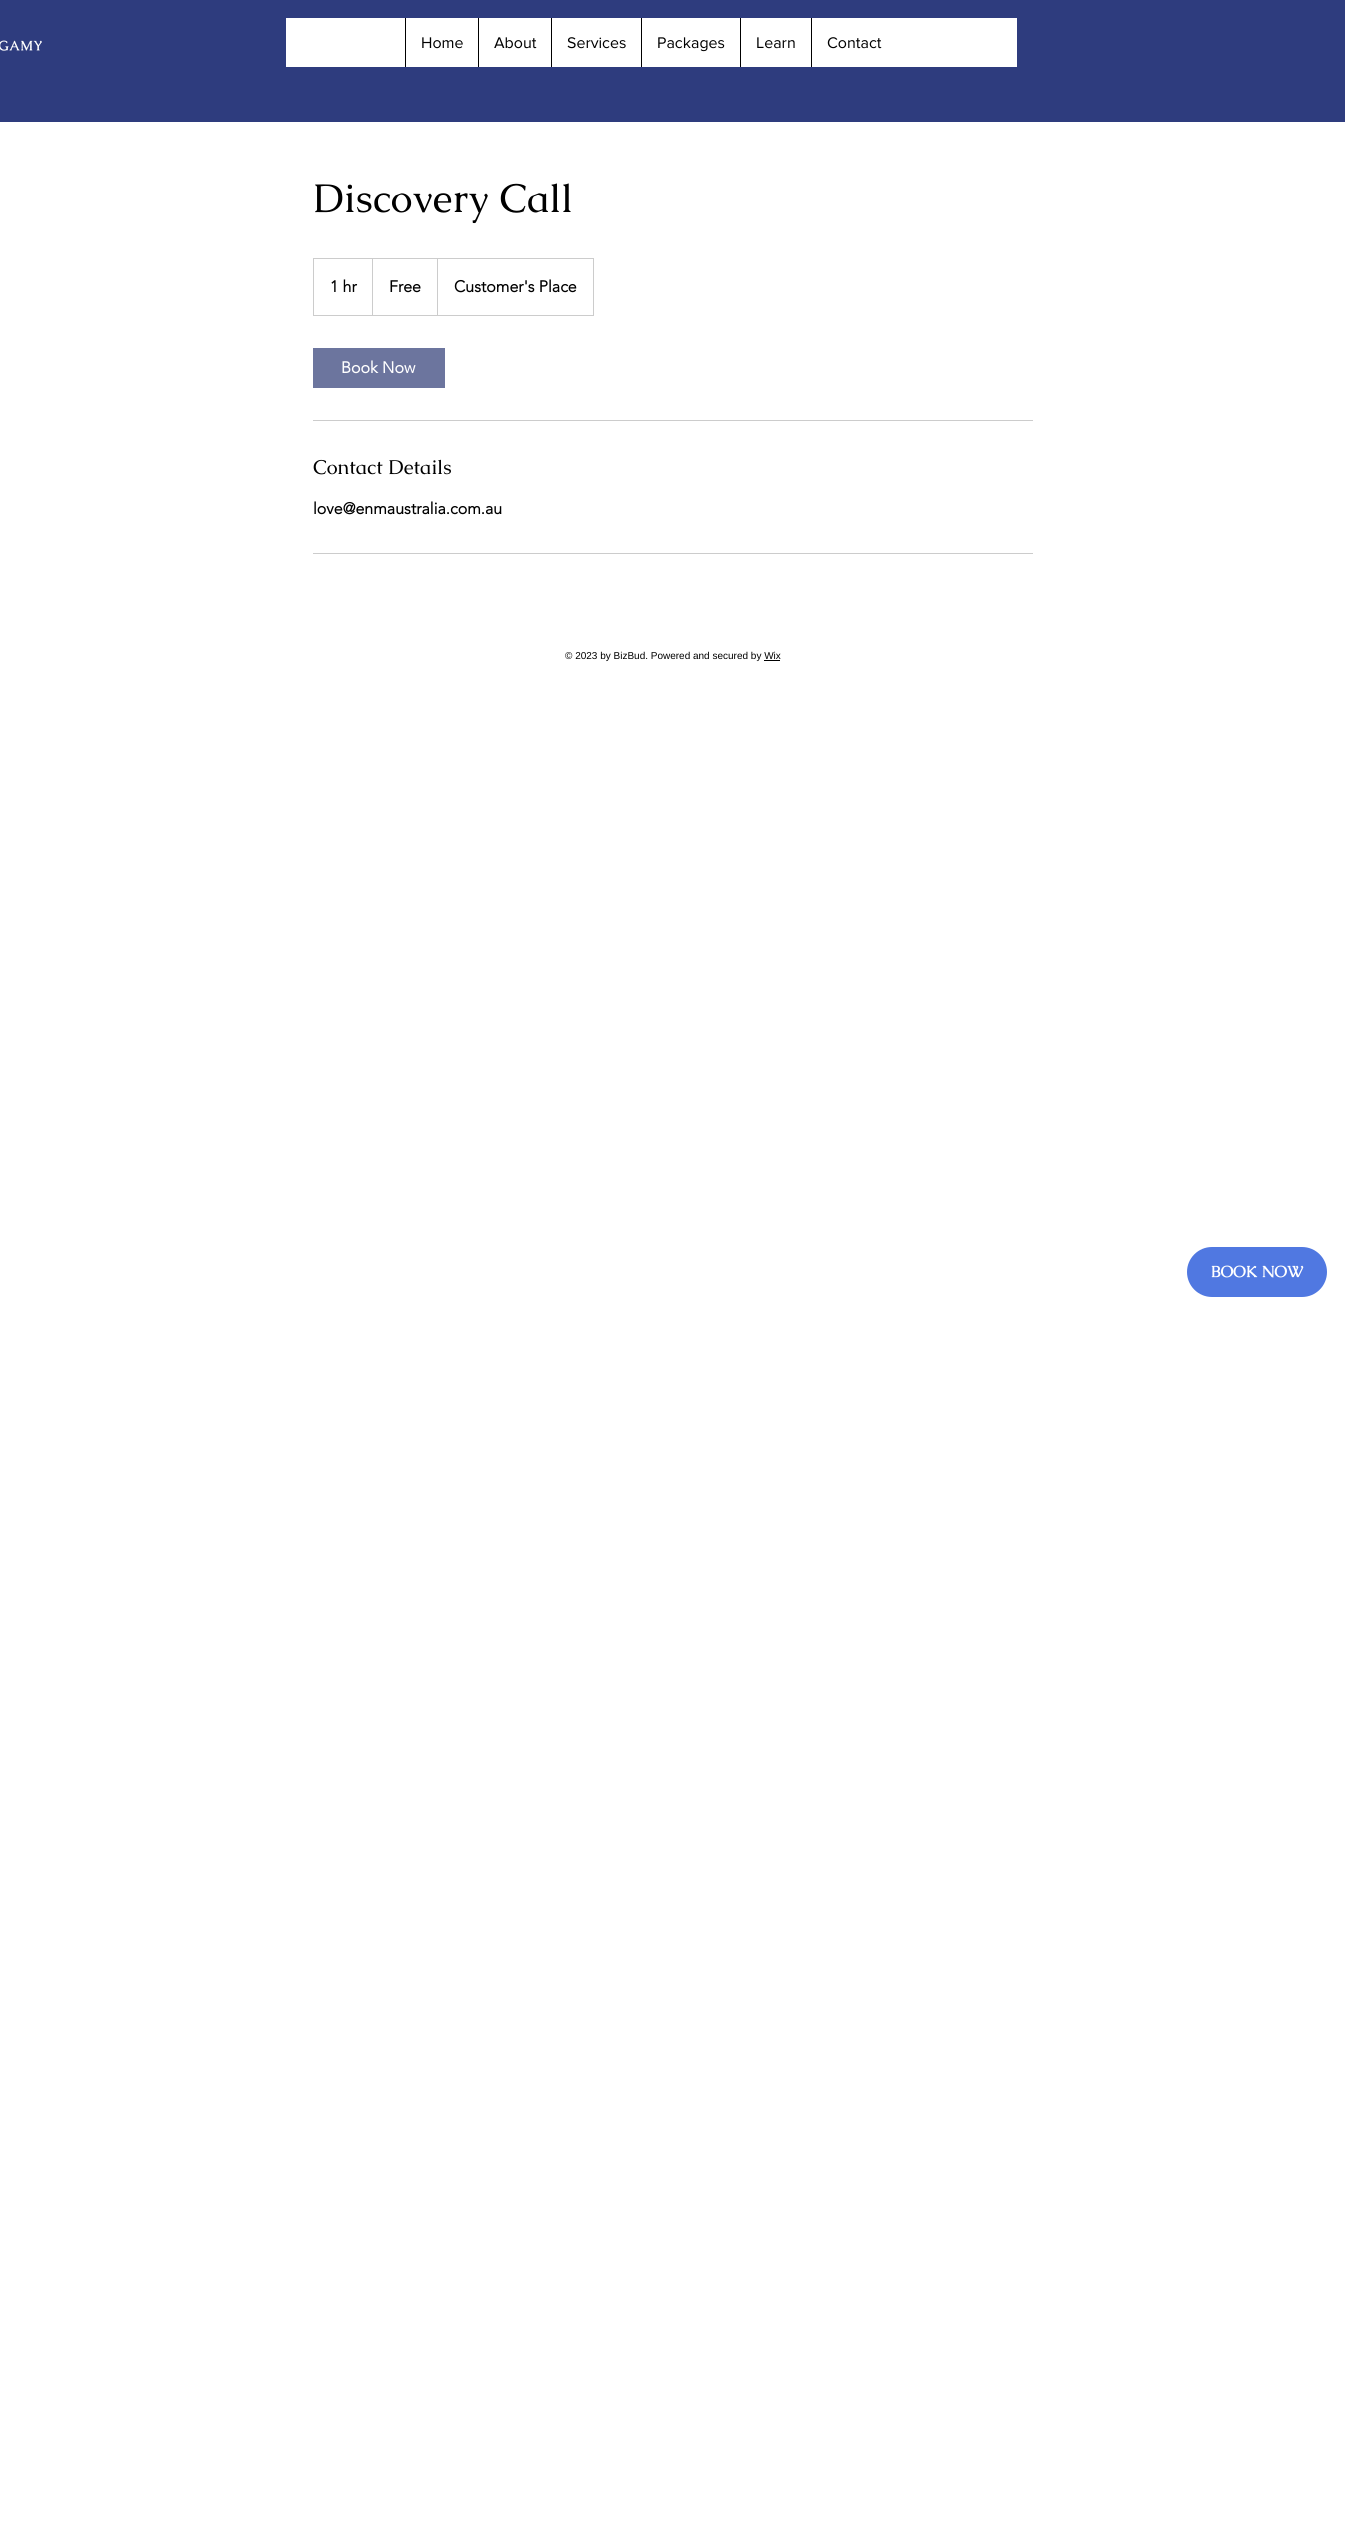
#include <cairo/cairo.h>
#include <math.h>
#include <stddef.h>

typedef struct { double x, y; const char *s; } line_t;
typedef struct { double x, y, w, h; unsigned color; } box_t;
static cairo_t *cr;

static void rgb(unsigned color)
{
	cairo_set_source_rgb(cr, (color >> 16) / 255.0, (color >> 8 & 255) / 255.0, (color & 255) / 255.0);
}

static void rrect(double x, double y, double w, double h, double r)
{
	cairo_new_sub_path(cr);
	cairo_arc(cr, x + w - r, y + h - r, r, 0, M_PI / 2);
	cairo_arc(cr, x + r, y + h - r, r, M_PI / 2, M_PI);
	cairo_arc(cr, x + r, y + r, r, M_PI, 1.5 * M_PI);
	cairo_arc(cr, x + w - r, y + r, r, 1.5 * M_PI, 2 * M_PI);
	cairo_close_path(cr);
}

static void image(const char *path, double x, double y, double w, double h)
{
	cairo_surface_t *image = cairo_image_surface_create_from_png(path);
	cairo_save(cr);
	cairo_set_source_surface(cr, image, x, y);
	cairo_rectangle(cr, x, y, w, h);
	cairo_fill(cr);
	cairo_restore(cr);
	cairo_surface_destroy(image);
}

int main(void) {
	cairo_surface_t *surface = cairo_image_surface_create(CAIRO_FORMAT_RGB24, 1345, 2544);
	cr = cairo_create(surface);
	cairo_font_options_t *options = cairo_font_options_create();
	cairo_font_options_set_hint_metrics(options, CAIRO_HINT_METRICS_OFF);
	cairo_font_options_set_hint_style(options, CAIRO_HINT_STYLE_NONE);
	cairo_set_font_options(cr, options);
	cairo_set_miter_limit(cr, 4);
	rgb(0xffffff);
	cairo_paint(cr);
	rgb(0x2e3c7e);
	cairo_rectangle(cr, 0, 0, 1345, 122);
	cairo_fill(cr);
	image("img/1.png", 0, 40, 42, 11);
	{
		static const box_t items[] = {
			{286, 18, 731, 49, 0xffffff},
			{405, 18, 1, 49, 0x000000},
			{478, 18, 1, 49, 0x000000},
			{551, 18, 1, 49, 0x000000},
			{641, 18, 1, 49, 0x000000},
			{740, 18, 1, 49, 0x000000},
			{811, 18, 1, 49, 0x000000},
		};
		for (size_t i = 0; i < sizeof items / sizeof *items; i++) {
			rgb(items[i].color);
			cairo_rectangle(cr, items[i].x, items[i].y, items[i].w, items[i].h);
			cairo_fill(cr);
		}
	}
	cairo_rectangle(cr, 313.5, 258.5, 280, 57);
	rgb(0xcccccc);
	cairo_set_line_width(cr, 1);
	cairo_stroke(cr);
	cairo_new_path(cr);
	cairo_move_to(cr, 372, 315);
	cairo_line_to(cr, 372, 258);
	cairo_line_to(cr, 373, 259);
	cairo_line_to(cr, 373, 315);
	cairo_close_path(cr);
	cairo_fill(cr);
	cairo_new_path(cr);
	cairo_move_to(cr, 437, 315);
	cairo_line_to(cr, 437, 258);
	cairo_line_to(cr, 438, 259);
	cairo_line_to(cr, 438, 315);
	cairo_close_path(cr);
	cairo_fill(cr);
	{
		static const box_t items[] = {
			{313, 348, 132, 40, 0x6c759e},
			{313, 420, 720, 1, 0xcccccc},
			{313, 553, 720, 1, 0xcccccc},
			{764, 660, 16, 1, 0x000000},
		};
		for (size_t i = 0; i < sizeof items / sizeof *items; i++) {
			rgb(items[i].color);
			cairo_rectangle(cr, items[i].x, items[i].y, items[i].w, items[i].h);
			cairo_fill(cr);
		}
	}
	rgb(0x5078e1);
	rrect(1187, 1247, 140, 50, 25);
	cairo_fill(cr);
	cairo_select_font_face(cr, "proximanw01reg", CAIRO_FONT_SLANT_NORMAL, CAIRO_FONT_WEIGHT_NORMAL);
	cairo_set_font_size(cr, 16);
	rgb(0x000000);
	{
		static const line_t items[] = {
			{421, 48, "Home"},
			{494, 48, "About"},
			{567, 48, "Services"},
			{657, 48, "Packages"},
			{756, 48, "Learn"},
			{827, 48, "Contact"},
		};
		for (size_t i = 0; i < sizeof items / sizeof *items; i++) {
			cairo_move_to(cr, items[i].x, items[i].y);
			cairo_show_text(cr, items[i].s);
		}
	}
	cairo_select_font_face(cr, "Caudex", CAIRO_FONT_SLANT_NORMAL, CAIRO_FONT_WEIGHT_NORMAL);
	cairo_set_font_size(cr, 40);
	cairo_move_to(cr, 313, 212);
	cairo_show_text(cr, "Discovery Call");
	cairo_select_font_face(cr, "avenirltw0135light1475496", CAIRO_FONT_SLANT_NORMAL, CAIRO_FONT_WEIGHT_BOLD);
	cairo_set_font_size(cr, 16);
	{
		static const line_t items[] = {
			{330, 292, "1 hr"},
			{389, 292, "Free"},
			{454, 292, "Customer's Place"},
		};
		for (size_t i = 0; i < sizeof items / sizeof *items; i++) {
			cairo_move_to(cr, items[i].x, items[i].y);
			cairo_show_text(cr, items[i].s);
		}
	}
	rgb(0xffffff);
	cairo_move_to(cr, 341, 373);
	cairo_show_text(cr, "Book Now");
	cairo_select_font_face(cr, "Caudex", CAIRO_FONT_SLANT_NORMAL, CAIRO_FONT_WEIGHT_NORMAL);
	cairo_set_font_size(cr, 20);
	rgb(0x000000);
	cairo_move_to(cr, 313, 474);
	cairo_show_text(cr, "Contact Details");
	cairo_select_font_face(cr, "avenirltw0135light1475496", CAIRO_FONT_SLANT_NORMAL, CAIRO_FONT_WEIGHT_BOLD);
	cairo_set_font_size(cr, 16);
	cairo_move_to(cr, 313, 514);
	cairo_show_text(cr, "love@enmaustralia.com.au");
	cairo_select_font_face(cr, "Liberation Sans", CAIRO_FONT_SLANT_NORMAL, CAIRO_FONT_WEIGHT_NORMAL);
	cairo_set_font_size(cr, 10);
	cairo_move_to(cr, 565, 659);
	cairo_show_text(cr, "© 2023 by BizBud. Powered and secured by Wix");
	cairo_select_font_face(cr, "Caudex", CAIRO_FONT_SLANT_NORMAL, CAIRO_FONT_WEIGHT_BOLD);
	cairo_set_font_size(cr, 16);
	rgb(0xffffff);
	cairo_move_to(cr, 1211, 1277);
	cairo_show_text(cr, "BOOK NOW");
	cairo_surface_write_to_png(surface, "page.png");
	cairo_font_options_destroy(options);
	cairo_destroy(cr);
	cairo_surface_destroy(surface);
	return 0;
}
